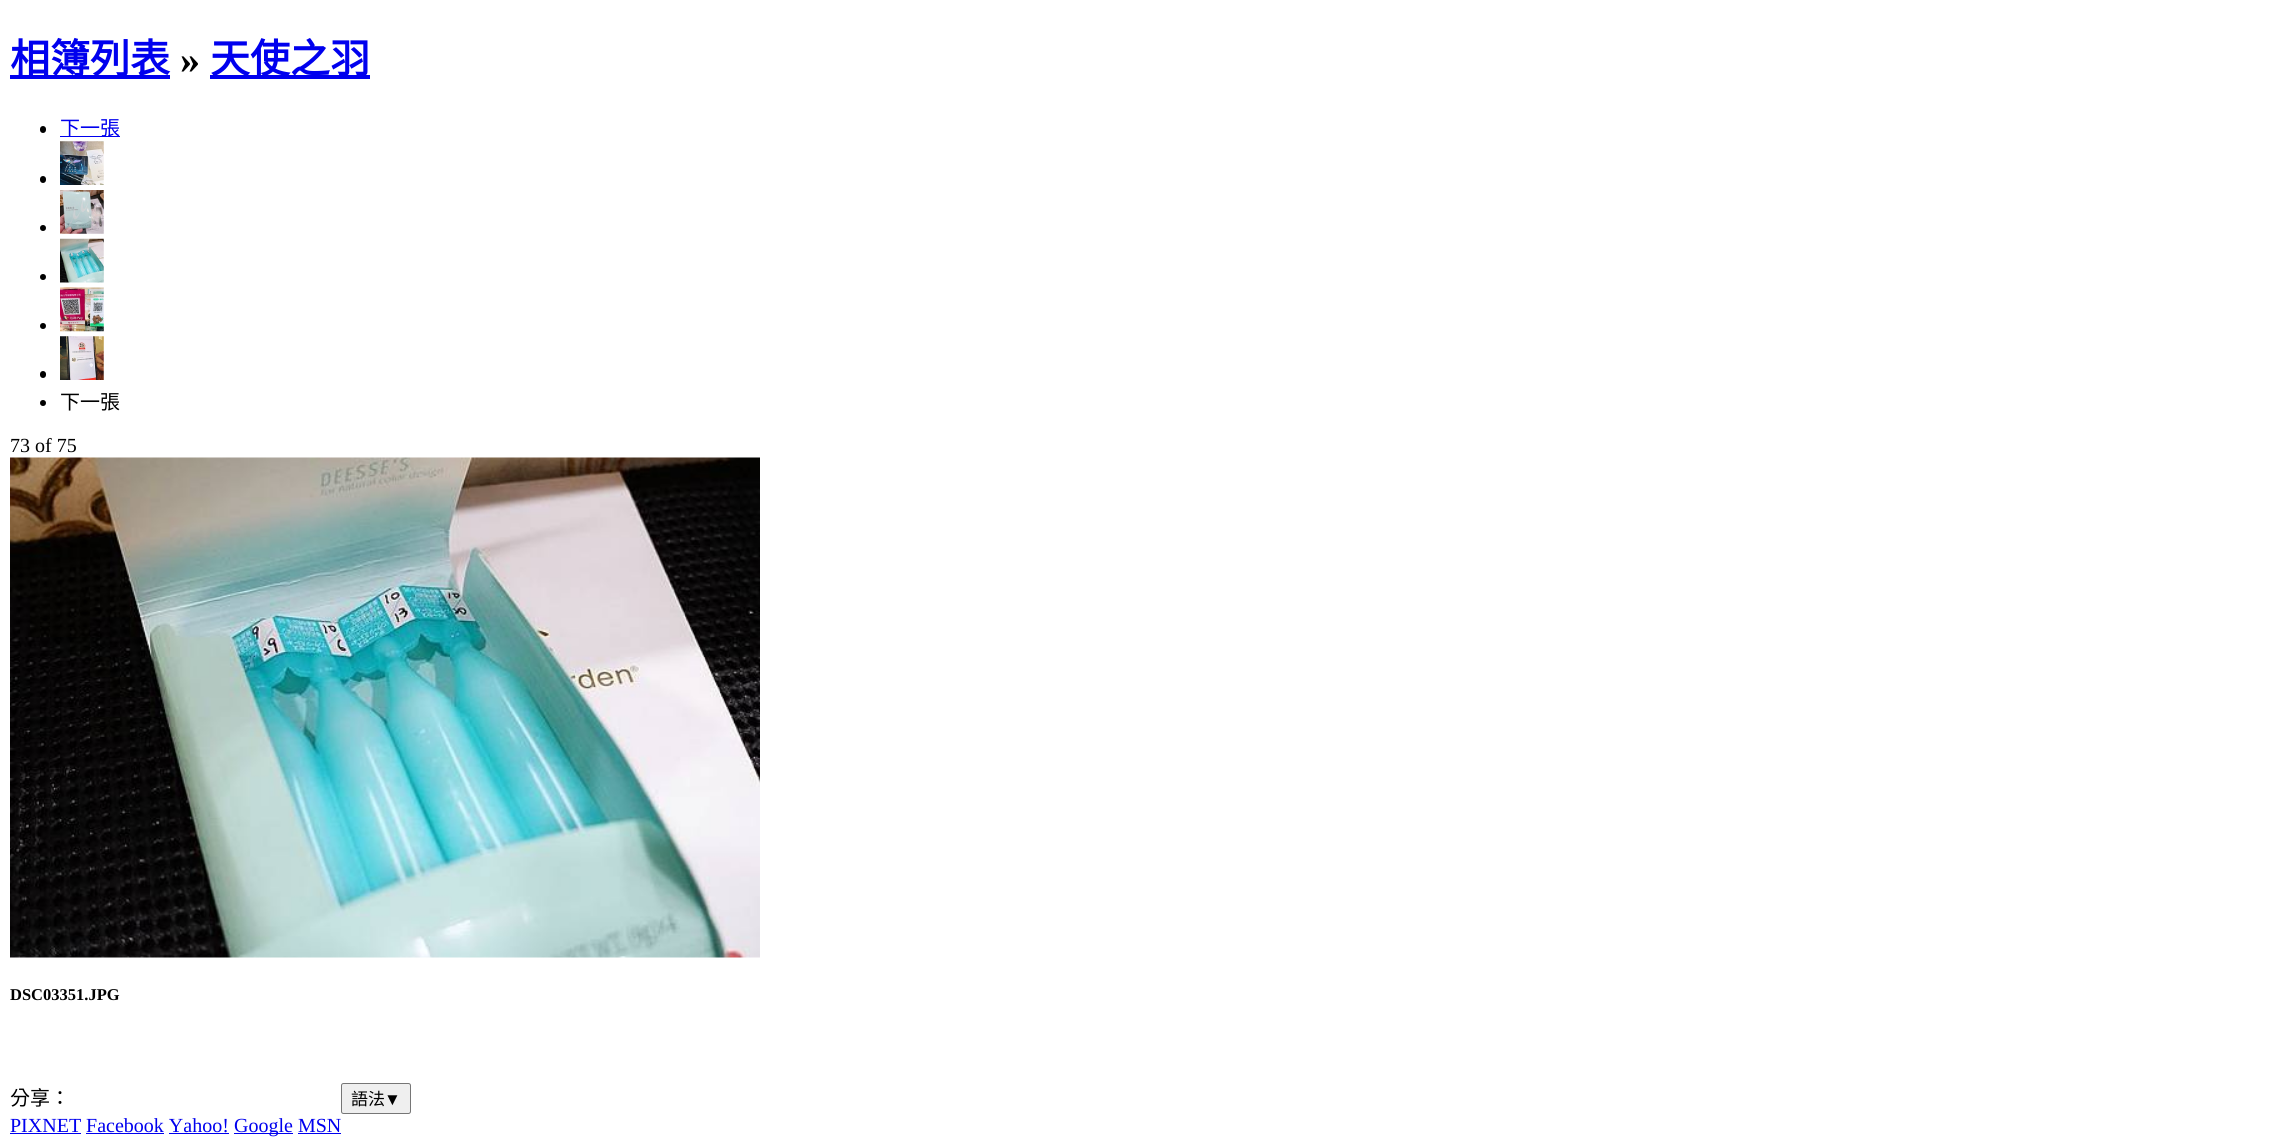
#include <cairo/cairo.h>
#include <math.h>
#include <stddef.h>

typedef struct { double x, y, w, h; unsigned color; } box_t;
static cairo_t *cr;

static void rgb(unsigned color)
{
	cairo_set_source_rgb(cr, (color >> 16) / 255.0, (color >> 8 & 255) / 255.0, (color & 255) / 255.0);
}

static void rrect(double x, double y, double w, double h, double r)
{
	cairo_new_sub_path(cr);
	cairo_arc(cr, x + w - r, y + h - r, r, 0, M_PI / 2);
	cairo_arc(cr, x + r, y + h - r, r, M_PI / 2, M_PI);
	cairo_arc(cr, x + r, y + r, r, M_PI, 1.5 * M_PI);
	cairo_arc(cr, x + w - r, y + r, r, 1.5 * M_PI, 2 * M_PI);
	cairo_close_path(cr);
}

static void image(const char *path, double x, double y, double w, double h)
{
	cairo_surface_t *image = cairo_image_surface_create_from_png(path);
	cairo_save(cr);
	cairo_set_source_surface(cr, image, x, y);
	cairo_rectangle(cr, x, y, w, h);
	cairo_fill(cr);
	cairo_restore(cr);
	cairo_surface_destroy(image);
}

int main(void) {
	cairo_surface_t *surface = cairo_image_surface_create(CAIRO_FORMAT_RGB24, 2290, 1147);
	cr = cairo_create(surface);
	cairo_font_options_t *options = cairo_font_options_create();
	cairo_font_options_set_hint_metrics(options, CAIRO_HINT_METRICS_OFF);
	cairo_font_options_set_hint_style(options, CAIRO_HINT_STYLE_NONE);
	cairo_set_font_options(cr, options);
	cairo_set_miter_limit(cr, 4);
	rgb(0xffffff);
	cairo_paint(cr);
	rgb(0x0000ee);
	cairo_rectangle(cr, 10, 75, 160, 4);
	cairo_fill(cr);
	cairo_rectangle(cr, 210, 75, 160, 4);
	cairo_fill(cr);
	rgb(0x000000);
	rrect(40, 126, 6, 7, 3);
	cairo_fill(cr);
	rgb(0x0000ee);
	cairo_rectangle(cr, 60, 136, 60, 1);
	cairo_fill(cr);
	rgb(0x000000);
	rrect(40, 176, 6, 7, 3);
	cairo_fill(cr);
	image("img/1.png", 60, 141, 44, 44);
	cairo_arc(cr, 43, 228, 3, 0, 2 * M_PI);
	cairo_fill(cr);
	image("img/2.png", 60, 190, 44, 44);
	cairo_arc(cr, 43, 277, 3, 0, 2 * M_PI);
	cairo_fill(cr);
	image("img/3.png", 60, 238, 44, 45);
	cairo_arc(cr, 43, 326, 3, 0, 2 * M_PI);
	cairo_fill(cr);
	image("img/4.png", 60, 287, 44, 45);
	rrect(40, 371, 6, 7, 3);
	cairo_fill(cr);
	image("img/5.png", 60, 336, 44, 44);
	cairo_arc(cr, 43, 403, 3, 0, 2 * M_PI);
	cairo_fill(cr);
	image("img/6.png", 10, 457, 750, 501);
	rgb(0xefefef);
	rrect(341.5, 1083.5, 69, 30, 2);
	cairo_fill_preserve(cr);
	rgb(0x767676);
	cairo_set_line_width(cr, 1);
	cairo_stroke(cr);
	{
		static const box_t items[] = {
			{10, 1133, 71, 1, 0x0000ee},
			{234, 1133, 59, 1, 0x0000ee},
			{86, 1133, 78, 1, 0x0000ee},
			{169, 1133, 60, 1, 0x0000ee},
			{298, 1133, 43, 1, 0x0000ee},
		};
		for (size_t i = 0; i < sizeof items / sizeof *items; i++) {
			rgb(items[i].color);
			cairo_rectangle(cr, items[i].x, items[i].y, items[i].w, items[i].h);
			cairo_fill(cr);
		}
	}
	cairo_select_font_face(cr, "Noto Sans CJK TC", CAIRO_FONT_SLANT_NORMAL, CAIRO_FONT_WEIGHT_BOLD);
	cairo_set_font_size(cr, 40);
	cairo_move_to(cr, 10, 73);
	cairo_show_text(cr, "相簿列表");
	cairo_select_font_face(cr, "Liberation Serif", CAIRO_FONT_SLANT_NORMAL, CAIRO_FONT_WEIGHT_BOLD);
	rgb(0x000000);
	cairo_move_to(cr, 180, 73);
	cairo_show_text(cr, "»");
	cairo_select_font_face(cr, "Noto Sans CJK TC", CAIRO_FONT_SLANT_NORMAL, CAIRO_FONT_WEIGHT_BOLD);
	rgb(0x0000ee);
	cairo_move_to(cr, 210, 73);
	cairo_show_text(cr, "天使之羽");
	cairo_select_font_face(cr, "Noto Sans CJK TC", CAIRO_FONT_SLANT_NORMAL, CAIRO_FONT_WEIGHT_NORMAL);
	cairo_set_font_size(cr, 20);
	cairo_move_to(cr, 60, 135);
	cairo_show_text(cr, "下一張");
	rgb(0x000000);
	cairo_move_to(cr, 60, 409);
	cairo_show_text(cr, "下一張");
	cairo_select_font_face(cr, "Liberation Serif", CAIRO_FONT_SLANT_NORMAL, CAIRO_FONT_WEIGHT_NORMAL);
	cairo_move_to(cr, 10, 452);
	cairo_show_text(cr, "73 of 75");
	cairo_select_font_face(cr, "Liberation Serif", CAIRO_FONT_SLANT_NORMAL, CAIRO_FONT_WEIGHT_BOLD);
	cairo_set_font_size(cr, 16.5);
	cairo_move_to(cr, 10, 1000);
	cairo_show_text(cr, "DSC03351.JPG");
	cairo_select_font_face(cr, "Noto Sans CJK TC", CAIRO_FONT_SLANT_NORMAL, CAIRO_FONT_WEIGHT_NORMAL);
	cairo_set_font_size(cr, 20);
	cairo_move_to(cr, 10, 1105);
	cairo_show_text(cr, "分享：");
	cairo_set_font_size(cr, 17);
	cairo_move_to(cr, 351, 1105);
	cairo_show_text(cr, "語法");
	cairo_select_font_face(cr, "Liberation Sans", CAIRO_FONT_SLANT_NORMAL, CAIRO_FONT_WEIGHT_NORMAL);
	cairo_move_to(cr, 384, 1105);
	cairo_show_text(cr, "▼");
	cairo_select_font_face(cr, "Liberation Serif", CAIRO_FONT_SLANT_NORMAL, CAIRO_FONT_WEIGHT_NORMAL);
	cairo_set_font_size(cr, 20);
	rgb(0x0000ee);
	cairo_move_to(cr, 10, 1132);
	cairo_show_text(cr, "PIXNET Facebook Yahoo!");
	cairo_move_to(cr, 234, 1132);
	cairo_show_text(cr, "Google MSN");
	cairo_surface_write_to_png(surface, "page.png");
	cairo_font_options_destroy(options);
	cairo_destroy(cr);
	cairo_surface_destroy(surface);
	return 0;
}
